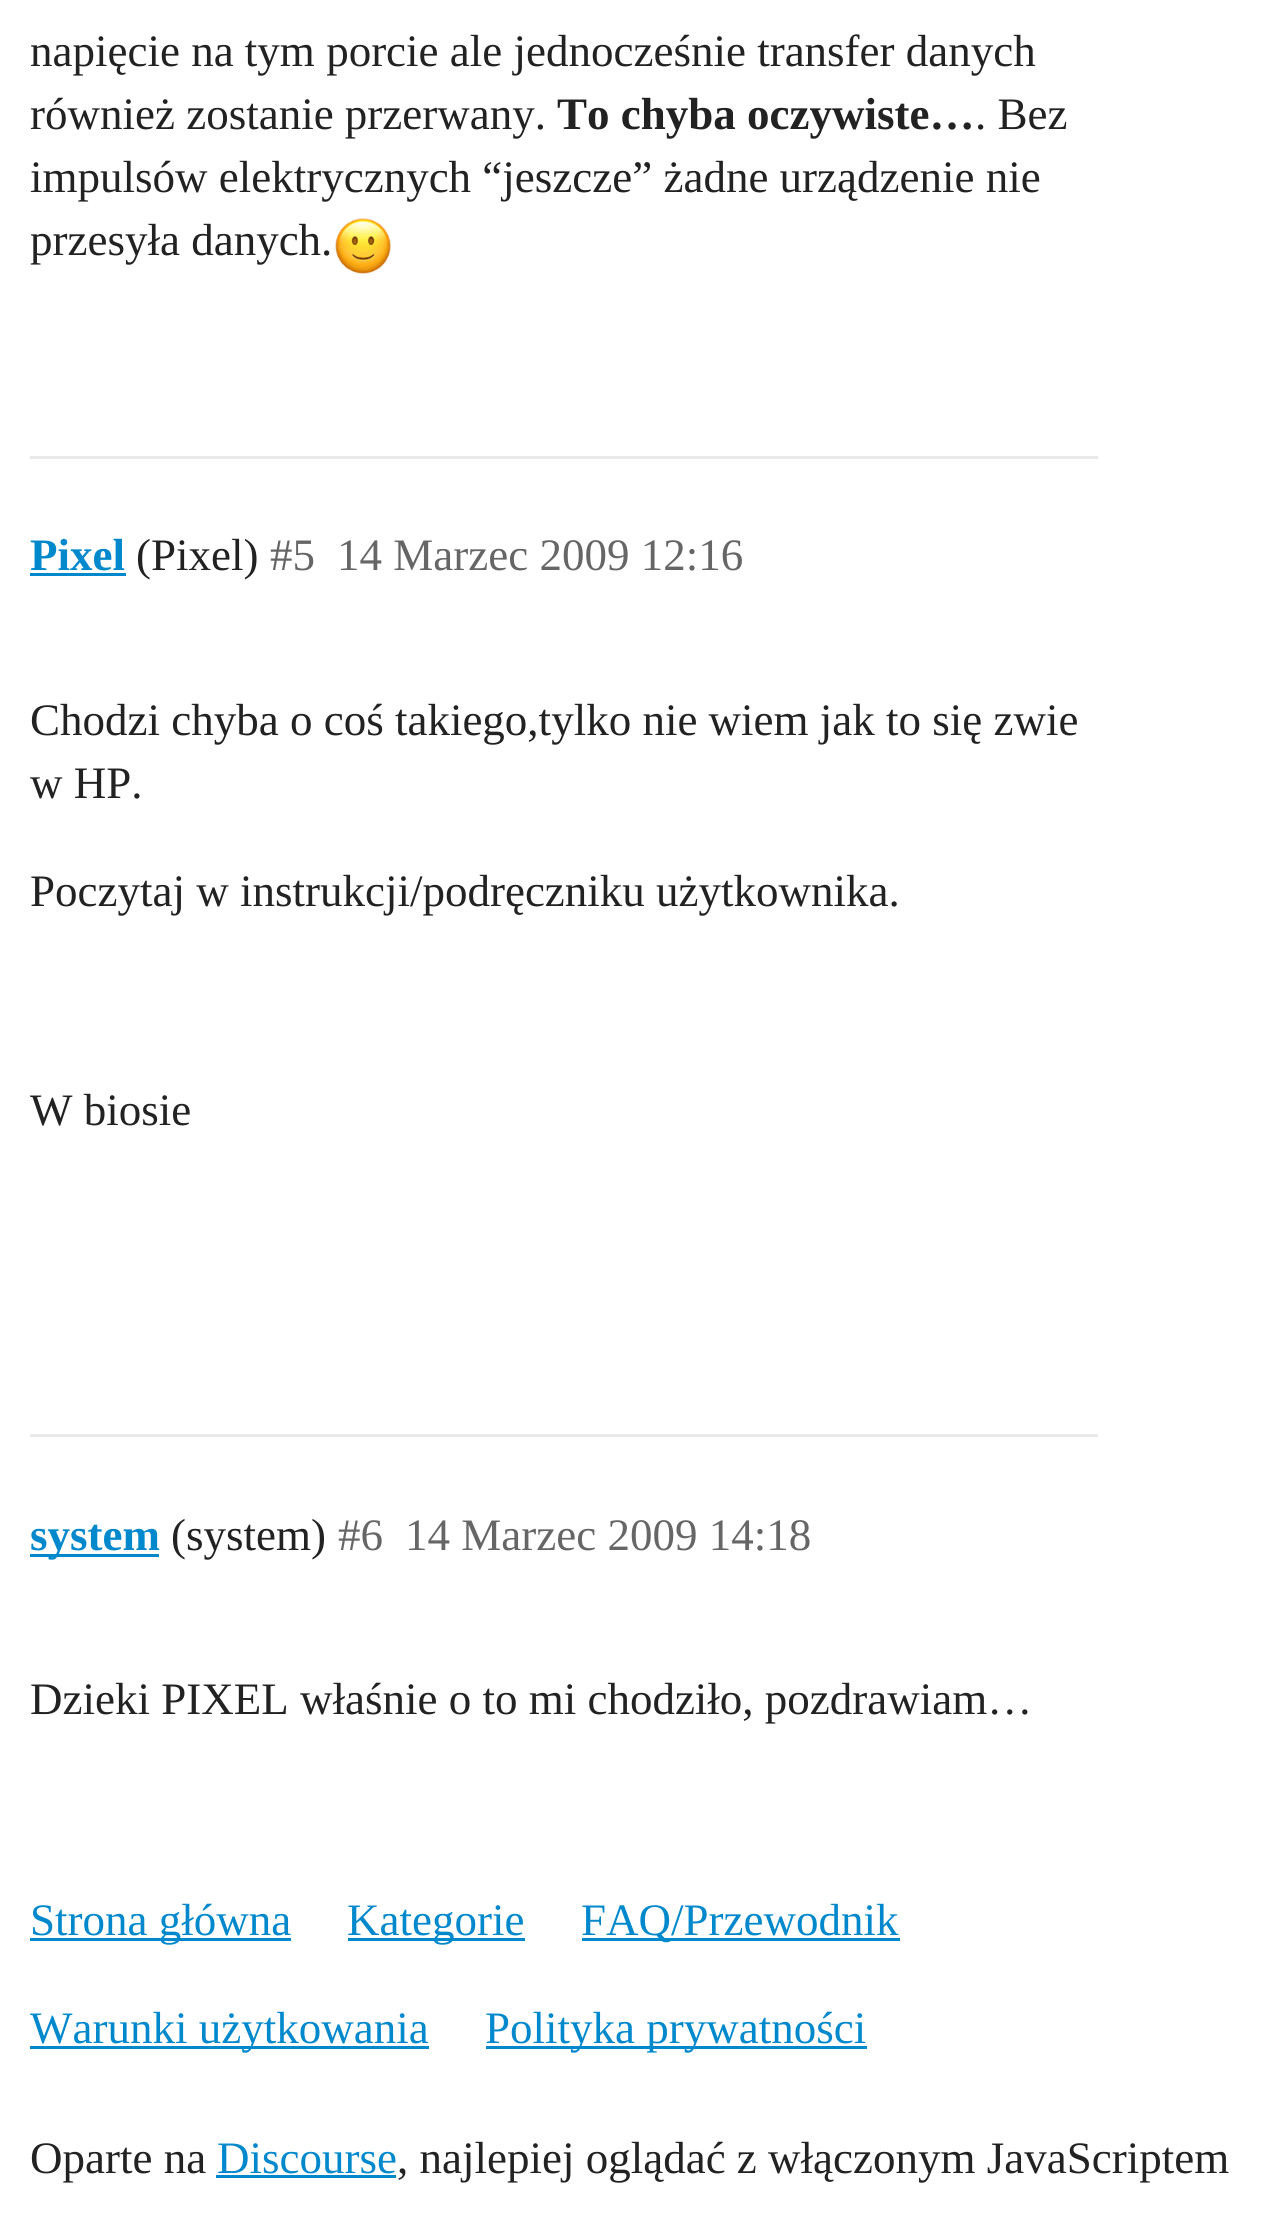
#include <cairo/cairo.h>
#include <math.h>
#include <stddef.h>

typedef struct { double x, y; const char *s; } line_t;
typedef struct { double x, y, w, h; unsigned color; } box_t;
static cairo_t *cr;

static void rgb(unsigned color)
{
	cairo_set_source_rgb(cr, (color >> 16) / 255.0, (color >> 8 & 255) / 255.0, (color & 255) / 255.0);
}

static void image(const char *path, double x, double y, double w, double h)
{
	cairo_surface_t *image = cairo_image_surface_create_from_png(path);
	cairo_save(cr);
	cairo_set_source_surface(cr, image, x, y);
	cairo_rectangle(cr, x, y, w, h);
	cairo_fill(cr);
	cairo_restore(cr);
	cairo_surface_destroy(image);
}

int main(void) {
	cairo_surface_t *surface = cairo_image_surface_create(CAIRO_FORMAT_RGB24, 1268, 2233);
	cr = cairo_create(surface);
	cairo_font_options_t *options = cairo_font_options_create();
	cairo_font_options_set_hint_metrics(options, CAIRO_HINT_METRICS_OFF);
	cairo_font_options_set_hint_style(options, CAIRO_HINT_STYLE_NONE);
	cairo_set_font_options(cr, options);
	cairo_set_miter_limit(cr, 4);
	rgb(0xffffff);
	cairo_paint(cr);
	image("img/1.png", 335, 218, 56, 56);
	{
		static const box_t items[] = {
			{30, 456, 1068, 3, 0xe9e9e9},
			{30, 573, 96, 3, 0x0088cc},
			{30, 1434, 1068, 3, 0xe9e9e9},
			{30, 1554, 129, 3, 0x0088cc},
			{30, 1938, 261, 3, 0x0088cc},
			{348, 1938, 177, 3, 0x0088cc},
			{582, 1938, 318, 3, 0x0088cc},
			{30, 2046, 399, 3, 0x0088cc},
			{486, 2046, 381, 3, 0x0088cc},
			{216, 2175, 180, 3, 0x0088cc},
		};
		for (size_t i = 0; i < sizeof items / sizeof *items; i++) {
			rgb(items[i].color);
			cairo_rectangle(cr, items[i].x, items[i].y, items[i].w, items[i].h);
			cairo_fill(cr);
		}
	}
	cairo_select_font_face(cr, "Liberation Serif", CAIRO_FONT_SLANT_NORMAL, CAIRO_FONT_WEIGHT_NORMAL);
	cairo_set_font_size(cr, 45);
	rgb(0x222222);
	cairo_move_to(cr, 30, 66);
	cairo_show_text(cr, "napięcie na tym porcie ale jednocześnie transfer danych");
	cairo_move_to(cr, 30, 129);
	cairo_show_text(cr, "również zostanie przerwany.");
	cairo_select_font_face(cr, "Liberation Serif", CAIRO_FONT_SLANT_NORMAL, CAIRO_FONT_WEIGHT_BOLD);
	cairo_move_to(cr, 557, 129);
	cairo_show_text(cr, "To chyba oczywiste…");
	cairo_select_font_face(cr, "Liberation Serif", CAIRO_FONT_SLANT_NORMAL, CAIRO_FONT_WEIGHT_NORMAL);
	{
		static const line_t items[] = {
			{975, 129, ". Bez"},
			{30, 192, "impulsów elektrycznych “jeszcze” żadne urządzenie nie"},
			{30, 255, "przesyła danych."},
		};
		for (size_t i = 0; i < sizeof items / sizeof *items; i++) {
			cairo_move_to(cr, items[i].x, items[i].y);
			cairo_show_text(cr, items[i].s);
		}
	}
	cairo_select_font_face(cr, "Liberation Serif", CAIRO_FONT_SLANT_NORMAL, CAIRO_FONT_WEIGHT_BOLD);
	rgb(0x0088cc);
	cairo_move_to(cr, 30, 570);
	cairo_show_text(cr, "Pixel");
	cairo_select_font_face(cr, "Liberation Serif", CAIRO_FONT_SLANT_NORMAL, CAIRO_FONT_WEIGHT_NORMAL);
	rgb(0x222222);
	cairo_move_to(cr, 136, 570);
	cairo_show_text(cr, "(Pixel)");
	rgb(0x666666);
	cairo_move_to(cr, 270, 570);
	cairo_show_text(cr, "#5");
	cairo_move_to(cr, 337, 570);
	cairo_show_text(cr, "14 Marzec 2009 12:16");
	rgb(0x222222);
	{
		static const line_t items[] = {
			{30, 735, "Chodzi chyba o coś takiego,tylko nie wiem jak to się zwie"},
			{30, 798, "w HP."},
			{30, 906, "Poczytaj w instrukcji/podręczniku użytkownika."},
			{30, 1125, "W biosie"},
		};
		for (size_t i = 0; i < sizeof items / sizeof *items; i++) {
			cairo_move_to(cr, items[i].x, items[i].y);
			cairo_show_text(cr, items[i].s);
		}
	}
	cairo_select_font_face(cr, "Liberation Serif", CAIRO_FONT_SLANT_NORMAL, CAIRO_FONT_WEIGHT_BOLD);
	rgb(0x0088cc);
	cairo_move_to(cr, 30, 1550);
	cairo_show_text(cr, "system");
	cairo_select_font_face(cr, "Liberation Serif", CAIRO_FONT_SLANT_NORMAL, CAIRO_FONT_WEIGHT_NORMAL);
	rgb(0x222222);
	cairo_move_to(cr, 171, 1550);
	cairo_show_text(cr, "(system)");
	rgb(0x666666);
	cairo_move_to(cr, 338, 1550);
	cairo_show_text(cr, "#6");
	cairo_move_to(cr, 405, 1550);
	cairo_show_text(cr, "14 Marzec 2009 14:18");
	rgb(0x222222);
	cairo_move_to(cr, 30, 1714);
	cairo_show_text(cr, "Dzieki PIXEL właśnie o to mi chodziło, pozdrawiam…");
	rgb(0x0088cc);
	{
		static const line_t items[] = {
			{30, 1935, "Strona główna"},
			{347, 1935, "Kategorie"},
			{581, 1935, "FAQ/Przewodnik"},
			{30, 2043, "Warunki użytkowania"},
			{485, 2043, "Polityka prywatności"},
		};
		for (size_t i = 0; i < sizeof items / sizeof *items; i++) {
			cairo_move_to(cr, items[i].x, items[i].y);
			cairo_show_text(cr, items[i].s);
		}
	}
	rgb(0x222222);
	cairo_move_to(cr, 30, 2173);
	cairo_show_text(cr, "Oparte na");
	rgb(0x0088cc);
	cairo_move_to(cr, 217, 2173);
	cairo_show_text(cr, "Discourse");
	rgb(0x222222);
	cairo_move_to(cr, 397, 2173);
	cairo_show_text(cr, ", najlepiej oglądać z włączonym JavaScriptem");
	cairo_surface_write_to_png(surface, "page.png");
	cairo_font_options_destroy(options);
	cairo_destroy(cr);
	cairo_surface_destroy(surface);
	return 0;
}
